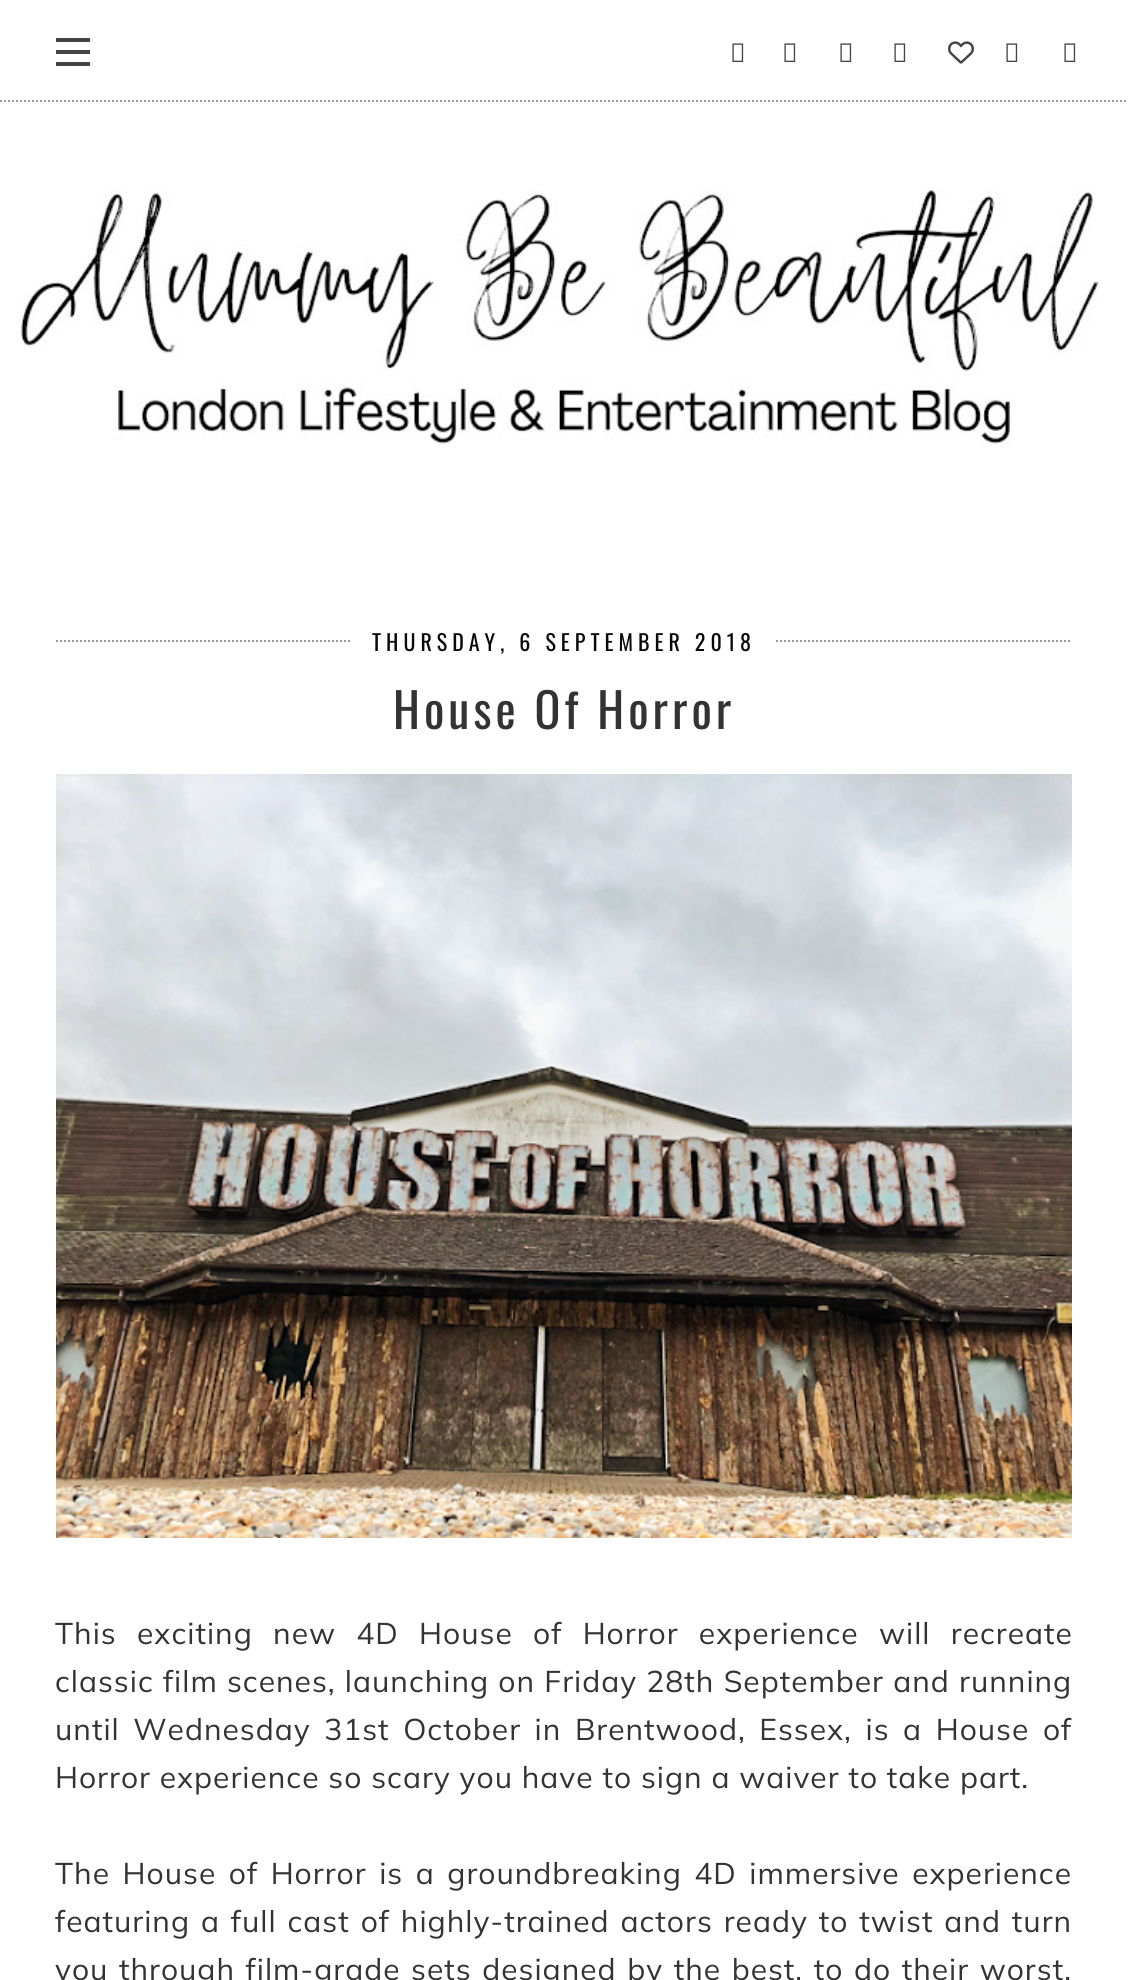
#include <cairo/cairo.h>
#include <math.h>
#include <stddef.h>

typedef struct { double x, y, w, h; unsigned color; } box_t;
static cairo_t *cr;

static void rgb(unsigned color)
{
	cairo_set_source_rgb(cr, (color >> 16) / 255.0, (color >> 8 & 255) / 255.0, (color & 255) / 255.0);
}

static void tracked(double x, double y, const char *s, double letter, double word)
{
	cairo_move_to(cr, x, y);
	while (*s) {
		char ch[5] = {0};
		int n = 0;
		do ch[n++] = *s++; while ((*s & 0xC0) == 0x80);
		cairo_show_text(cr, ch);
		cairo_rel_move_to(cr, letter + word * (*ch == ' '), 0);
	}
}

static void image(const char *path, double x, double y, double w, double h)
{
	cairo_surface_t *image = cairo_image_surface_create_from_png(path);
	cairo_save(cr);
	cairo_set_source_surface(cr, image, x, y);
	cairo_rectangle(cr, x, y, w, h);
	cairo_fill(cr);
	cairo_restore(cr);
	cairo_surface_destroy(image);
}

int main(void) {
	cairo_surface_t *surface = cairo_image_surface_create(CAIRO_FORMAT_RGB24, 1128, 1980);
	cr = cairo_create(surface);
	cairo_font_options_t *options = cairo_font_options_create();
	cairo_font_options_set_hint_metrics(options, CAIRO_HINT_METRICS_OFF);
	cairo_font_options_set_hint_style(options, CAIRO_HINT_STYLE_NONE);
	cairo_set_font_options(cr, options);
	cairo_set_miter_limit(cr, 4);
	rgb(0xffffff);
	cairo_paint(cr);
	cairo_new_path(cr);
	cairo_move_to(cr, 0, 101);
	cairo_line_to(cr, 1128, 101);
	rgb(0x999999);
	cairo_set_dash(cr, (double[]){2, 2}, 2, 0);
	cairo_stroke(cr);
	{
		static const box_t items[] = {
			{56, 50, 34, 4, 0x444444},
			{56, 38, 34, 4, 0x444444},
			{56, 62, 34, 4, 0x444444},
		};
		for (size_t i = 0; i < sizeof items / sizeof *items; i++) {
			rgb(items[i].color);
			cairo_rectangle(cr, items[i].x, items[i].y, items[i].w, items[i].h);
			cairo_fill(cr);
		}
	}
	image("img/1.png", 732, 43, 12, 19);
	image("img/1.png", 784, 43, 12, 19);
	image("img/1.png", 840, 43, 12, 19);
	image("img/1.png", 894, 43, 12, 19);
	image("img/2.png", 948, 41, 26, 23);
	image("img/1.png", 1006, 43, 12, 19);
	image("img/1.png", 1064, 43, 12, 19);
	image("img/3.png", 21, 188, 1078, 261);
	cairo_new_path(cr);
	cairo_move_to(cr, 56, 641);
	cairo_line_to(cr, 1072, 641);
	rgb(0x999999);
	cairo_stroke(cr);
	rgb(0xffffff);
	cairo_rectangle(cr, 352, 640, 422, 2);
	cairo_fill(cr);
	image("img/4.png", 56, 774, 1016, 764);
	cairo_select_font_face(cr, "Oswald", CAIRO_FONT_SLANT_NORMAL, CAIRO_FONT_WEIGHT_NORMAL);
	cairo_set_font_size(cr, 22);
	rgb(0x090909);
	tracked(372, 651, "THURSDAY, 6 SEPTEMBER 2018", 5, 0);
	cairo_set_font_size(cr, 48);
	rgb(0x333333);
	tracked(393, 729, "House Of Horror", 4, 0);
	cairo_select_font_face(cr, "Mulish", CAIRO_FONT_SLANT_NORMAL, CAIRO_FONT_WEIGHT_NORMAL);
	cairo_set_font_size(cr, 30);
	tracked(55, 1644, "This exciting new 4D House of Horror experience will recreate", 1, 11.5);
	tracked(55, 1692, "classic film scenes, launching on Friday 28th September and running", 1, 0.4);
	tracked(55, 1740, "until Wednesday 31st October in Brentwood, Essex, is a House of", 1, 4.75);
	tracked(55, 1788, "Horror experience so scary you have to sign a waiver to take part.", 1, 0);
	tracked(55, 1884, "The House of Horror is a groundbreaking 4D immersive experience", 1, 3.75);
	tracked(55, 1932, "featuring a full cast of highly-trained actors ready to twist and turn", 1, 2.1);
	tracked(55, 1980, "you through film-grade sets designed by the best, to do their worst.", 1, 1.75);
	cairo_surface_write_to_png(surface, "page.png");
	cairo_font_options_destroy(options);
	cairo_destroy(cr);
	cairo_surface_destroy(surface);
	return 0;
}
